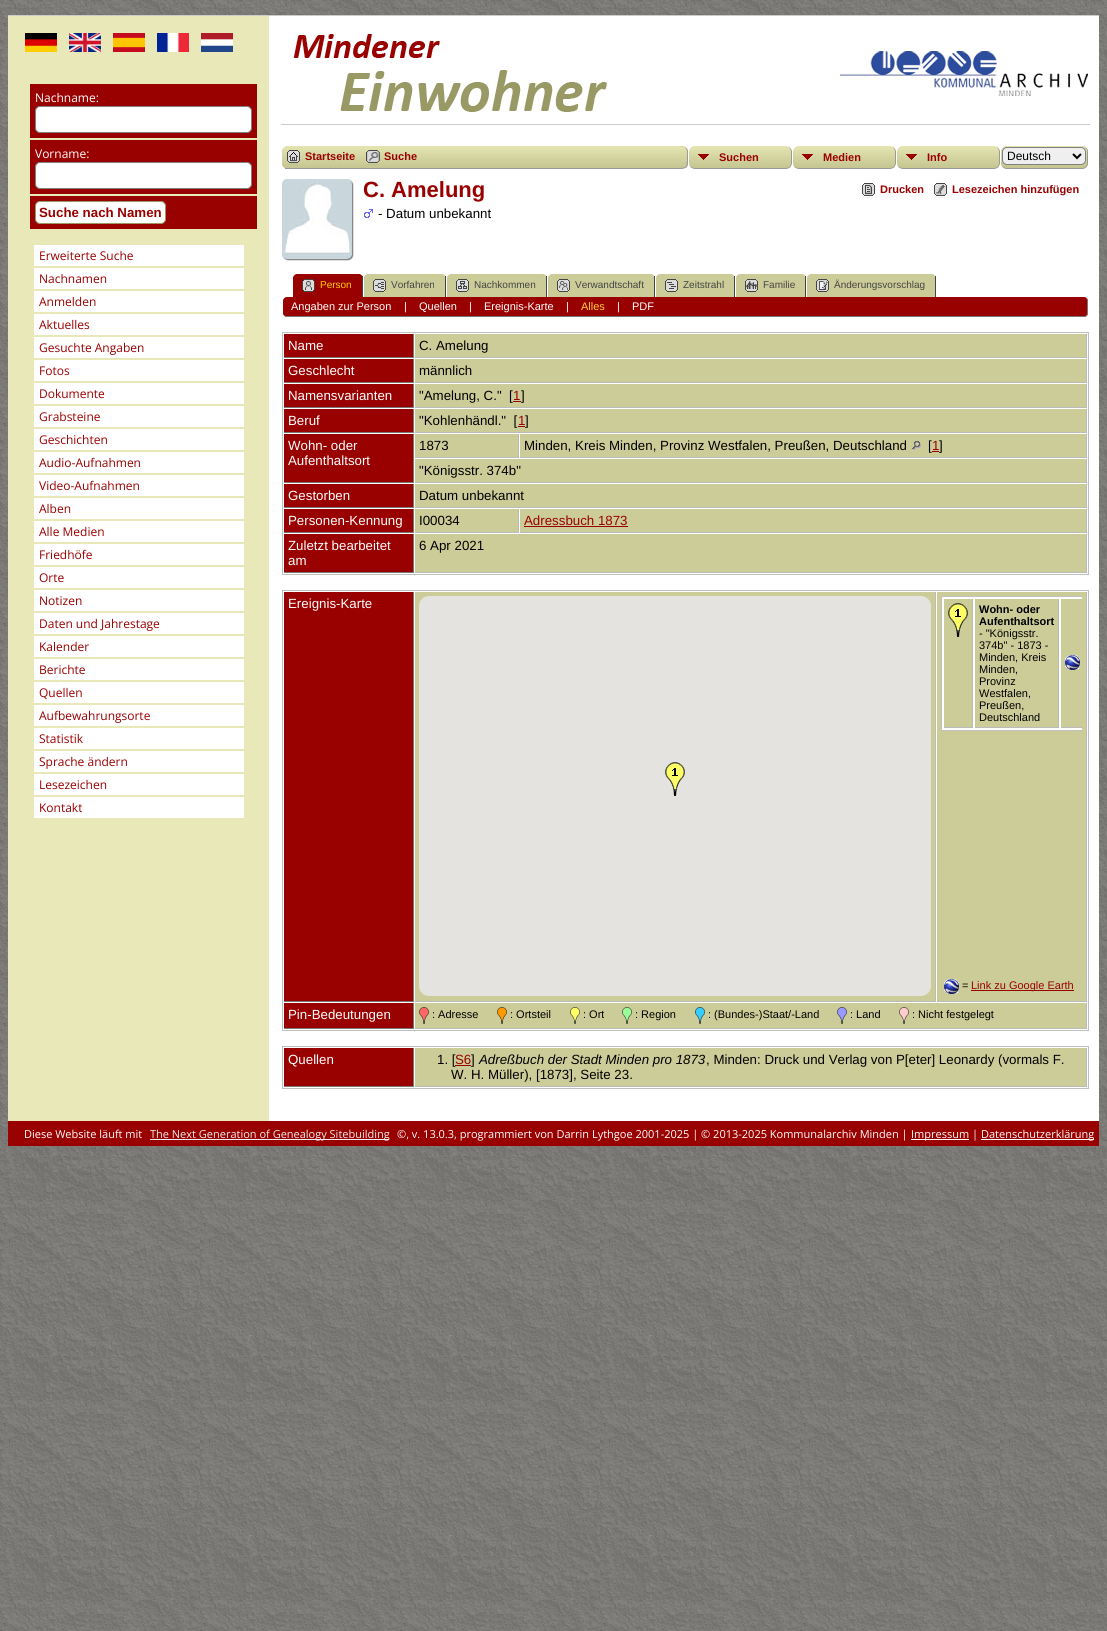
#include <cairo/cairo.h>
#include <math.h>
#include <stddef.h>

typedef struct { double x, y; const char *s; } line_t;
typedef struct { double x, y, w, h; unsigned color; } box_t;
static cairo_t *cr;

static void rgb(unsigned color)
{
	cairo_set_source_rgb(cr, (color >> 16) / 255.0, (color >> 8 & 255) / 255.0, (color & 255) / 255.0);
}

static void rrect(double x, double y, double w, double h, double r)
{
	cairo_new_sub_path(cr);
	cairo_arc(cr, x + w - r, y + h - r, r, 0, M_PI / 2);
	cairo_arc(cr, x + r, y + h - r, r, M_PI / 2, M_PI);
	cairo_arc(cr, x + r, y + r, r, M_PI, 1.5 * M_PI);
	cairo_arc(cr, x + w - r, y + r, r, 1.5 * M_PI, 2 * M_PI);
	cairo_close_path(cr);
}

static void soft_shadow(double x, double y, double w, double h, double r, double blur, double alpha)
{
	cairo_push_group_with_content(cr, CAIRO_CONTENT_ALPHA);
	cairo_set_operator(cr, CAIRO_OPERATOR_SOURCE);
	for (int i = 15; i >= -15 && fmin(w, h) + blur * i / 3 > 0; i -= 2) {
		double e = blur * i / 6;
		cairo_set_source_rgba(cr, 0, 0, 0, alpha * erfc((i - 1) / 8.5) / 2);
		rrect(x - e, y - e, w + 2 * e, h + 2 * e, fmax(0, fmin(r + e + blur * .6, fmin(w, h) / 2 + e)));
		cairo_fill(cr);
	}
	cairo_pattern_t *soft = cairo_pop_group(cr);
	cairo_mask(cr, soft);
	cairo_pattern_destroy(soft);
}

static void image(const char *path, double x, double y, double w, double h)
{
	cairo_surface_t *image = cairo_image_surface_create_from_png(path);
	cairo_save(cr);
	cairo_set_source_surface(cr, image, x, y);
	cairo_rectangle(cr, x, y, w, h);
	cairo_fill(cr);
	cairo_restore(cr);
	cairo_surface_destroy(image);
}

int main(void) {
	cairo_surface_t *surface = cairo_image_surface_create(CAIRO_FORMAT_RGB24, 1107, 1631);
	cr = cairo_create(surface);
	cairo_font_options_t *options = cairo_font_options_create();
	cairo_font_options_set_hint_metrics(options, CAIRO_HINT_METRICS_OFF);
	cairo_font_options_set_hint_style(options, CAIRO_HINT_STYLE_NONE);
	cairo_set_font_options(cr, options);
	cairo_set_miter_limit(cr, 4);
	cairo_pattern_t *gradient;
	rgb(0xffffff);
	cairo_paint(cr);
	image("img/1.png", 0, 0, 1107, 1631);
	{
		static const box_t items[] = {
			{269, 16, 830, 1105, 0xffffff},
			{8, 15, 1091, 1, 0xcccccc},
			{8, 16, 261, 1105, 0xe8e8b9},
		};
		for (size_t i = 0; i < sizeof items / sizeof *items; i++) {
			rgb(items[i].color);
			cairo_rectangle(cr, items[i].x, items[i].y, items[i].w, items[i].h);
			cairo_fill(cr);
		}
	}
	image("img/2.png", 25, 33, 32, 19);
	image("img/3.png", 69, 33, 32, 19);
	image("img/4.png", 113, 33, 32, 19);
	image("img/5.png", 157, 33, 32, 19);
	image("img/6.png", 201, 33, 32, 19);
	rgb(0x990000);
	cairo_rectangle(cr, 30, 84, 227, 54);
	cairo_fill(cr);
	rgb(0xffffff);
	rrect(35.5, 106.5, 216, 26, 4.5);
	cairo_fill_preserve(cr);
	rgb(0x808080);
	cairo_set_line_width(cr, 1);
	cairo_stroke(cr);
	rgb(0x990000);
	cairo_rectangle(cr, 30, 140, 227, 54);
	cairo_fill(cr);
	rgb(0xffffff);
	rrect(35.5, 162.5, 216, 26, 4.5);
	cairo_fill_preserve(cr);
	rgb(0x808080);
	cairo_stroke(cr);
	rgb(0x990000);
	cairo_rectangle(cr, 30, 196, 227, 33);
	cairo_fill(cr);
	rgb(0xffffff);
	rrect(35.5, 201.5, 130, 22, 4.5);
	cairo_fill_preserve(cr);
	rgb(0x999966);
	cairo_stroke(cr);
	{
		static const box_t items[] = {
			{34, 245, 210, 21, 0xffffff},
			{34, 268, 210, 21, 0xffffff},
			{34, 291, 210, 21, 0xffffff},
			{34, 314, 210, 21, 0xffffff},
			{34, 337, 210, 21, 0xffffff},
			{34, 360, 210, 21, 0xffffff},
			{34, 383, 210, 21, 0xffffff},
			{34, 406, 210, 21, 0xffffff},
			{34, 429, 210, 21, 0xffffff},
			{34, 452, 210, 21, 0xffffff},
			{34, 475, 210, 21, 0xffffff},
			{34, 498, 210, 21, 0xffffff},
			{34, 521, 210, 21, 0xffffff},
			{34, 544, 210, 21, 0xffffff},
			{34, 567, 210, 21, 0xffffff},
			{34, 590, 210, 21, 0xffffff},
			{34, 613, 210, 21, 0xffffff},
			{34, 636, 210, 21, 0xffffff},
			{34, 659, 210, 21, 0xffffff},
			{34, 682, 210, 21, 0xffffff},
			{34, 705, 210, 21, 0xffffff},
			{34, 728, 210, 21, 0xffffff},
			{34, 751, 210, 21, 0xffffff},
			{34, 774, 210, 21, 0xffffff},
			{34, 797, 210, 21, 0xffffff},
		};
		for (size_t i = 0; i < sizeof items / sizeof *items; i++) {
			rgb(items[i].color);
			cairo_rectangle(cr, items[i].x, items[i].y, items[i].w, items[i].h);
			cairo_fill(cr);
		}
	}
	image("img/7.png", 293, 34, 314, 78);
	image("img/8.png", 840, 51, 248, 45);
	rgb(0xcccccc);
	cairo_rectangle(cr, 281, 124, 809, 1);
	cairo_fill(cr);
	rgb(0xcccc99);
	rrect(282, 146, 807, 23, 6);
	cairo_fill(cr);
	cairo_save(cr);
	rrect(282, 146, 807, 23, 6);
	cairo_clip(cr);
	gradient = cairo_pattern_create_linear(686, 146, 686, 168);
	cairo_pattern_add_color_stop_rgba(gradient, 0, 0.898, 0.898, 0.694, 1);
	cairo_pattern_add_color_stop_rgba(gradient, 1, 0.773, 0.773, 0.569, 1);
	cairo_set_source(cr, gradient);
	cairo_pattern_destroy(gradient);
	cairo_new_path(cr);
	cairo_move_to(cr, 288, 146);
	cairo_line_to(cr, 1083, 146);
	cairo_curve_to(cr, 1086.5, 146, 1089, 148.5, 1089, 152);
	cairo_line_to(cr, 1089, 168);
	cairo_line_to(cr, 282, 168);
	cairo_line_to(cr, 282, 152);
	cairo_curve_to(cr, 282, 148.5, 284.5, 146, 288, 146);
	cairo_close_path(cr);
	cairo_fill(cr);
	cairo_restore(cr);
	rgb(0x999999);
	cairo_rectangle(cr, 285, 168, 392, 1);
	cairo_fill(cr);
	image("img/9.png", 287, 150, 13, 15);
	image("img/10.png", 366, 150, 14, 15);
	rgb(0xffffff);
	cairo_rectangle(cr, 682, 146, 407, 23);
	cairo_fill(cr);
	cairo_save(cr);
	cairo_new_path(cr);
	cairo_move_to(cr, 677, 146);
	cairo_line_to(cr, 682, 146);
	cairo_curve_to(cr, 685.5, 146, 688, 148.5, 688, 152);
	cairo_line_to(cr, 688, 163);
	cairo_curve_to(cr, 688, 166.5, 685.5, 169, 682, 169);
	cairo_line_to(cr, 677, 169);
	cairo_close_path(cr);
	cairo_clip(cr);
	gradient = cairo_pattern_create_linear(682, 146, 682, 168);
	cairo_pattern_add_color_stop_rgba(gradient, 0, 0.898, 0.898, 0.694, 1);
	cairo_pattern_add_color_stop_rgba(gradient, 1, 0.773, 0.773, 0.569, 1);
	cairo_set_source(cr, gradient);
	cairo_pattern_destroy(gradient);
	cairo_rectangle(cr, 677, 146, 11, 22);
	cairo_fill(cr);
	gradient = cairo_pattern_create_linear(682, 168, 682, 190);
	cairo_pattern_add_color_stop_rgba(gradient, 0, 0.898, 0.898, 0.694, 1);
	cairo_pattern_add_color_stop_rgba(gradient, 1, 0.773, 0.773, 0.569, 1);
	cairo_set_source(cr, gradient);
	cairo_pattern_destroy(gradient);
	cairo_rectangle(cr, 677, 168, 11, 1);
	cairo_fill(cr);
	cairo_restore(cr);
	rgb(0x999999);
	cairo_set_fill_rule(cr, CAIRO_FILL_RULE_EVEN_ODD);
	cairo_new_path(cr);
	cairo_move_to(cr, 677, 146);
	cairo_curve_to(cr, 681, 146, 687, 145.5, 688, 151);
	cairo_line_to(cr, 688, 164);
	cairo_curve_to(cr, 687, 169.5, 681, 169, 677, 169);
	cairo_close_path(cr);
	cairo_move_to(cr, 677, 146);
	cairo_line_to(cr, 683, 146);
	cairo_curve_to(cr, 688, 147.5, 687, 154, 687, 157.5);
	cairo_curve_to(cr, 687, 167.5, 686.5, 168, 677, 168);
	cairo_close_path(cr);
	cairo_fill(cr);
	image("img/11.png", 689, 146, 102, 22);
	cairo_new_path(cr);
	cairo_move_to(cr, 695, 146);
	cairo_line_to(cr, 786, 146);
	cairo_curve_to(cr, 789, 146, 792, 149, 792, 152);
	cairo_line_to(cr, 792, 163);
	cairo_curve_to(cr, 792, 166, 789, 169, 786, 169);
	cairo_line_to(cr, 695, 169);
	cairo_curve_to(cr, 692, 169, 689, 166, 689, 163);
	cairo_line_to(cr, 689, 152);
	cairo_curve_to(cr, 689, 149, 692, 146, 695, 146);
	cairo_close_path(cr);
	cairo_move_to(cr, 695, 146);
	cairo_line_to(cr, 786, 146);
	cairo_curve_to(cr, 789, 146, 791, 149, 791, 152);
	cairo_line_to(cr, 791, 163);
	cairo_curve_to(cr, 791, 166, 789, 168, 786, 168);
	cairo_line_to(cr, 695, 168);
	cairo_curve_to(cr, 692, 168, 689, 166, 689, 163);
	cairo_line_to(cr, 689, 152);
	cairo_curve_to(cr, 689, 149, 692, 146, 695, 146);
	cairo_close_path(cr);
	cairo_fill(cr);
	image("img/12.png", 793, 146, 102, 22);
	cairo_new_path(cr);
	cairo_move_to(cr, 799, 146);
	cairo_line_to(cr, 890, 146);
	cairo_curve_to(cr, 893, 146, 896, 149, 896, 152);
	cairo_line_to(cr, 896, 163);
	cairo_curve_to(cr, 896, 166, 893, 169, 890, 169);
	cairo_line_to(cr, 799, 169);
	cairo_curve_to(cr, 796, 169, 793, 166, 793, 163);
	cairo_line_to(cr, 793, 152);
	cairo_curve_to(cr, 793, 149, 796, 146, 799, 146);
	cairo_close_path(cr);
	cairo_move_to(cr, 799, 146);
	cairo_line_to(cr, 890, 146);
	cairo_curve_to(cr, 893, 146, 895, 149, 895, 152);
	cairo_line_to(cr, 895, 163);
	cairo_curve_to(cr, 895, 166, 893, 168, 890, 168);
	cairo_line_to(cr, 799, 168);
	cairo_curve_to(cr, 796, 168, 793, 166, 793, 163);
	cairo_line_to(cr, 793, 152);
	cairo_curve_to(cr, 793, 149, 796, 146, 799, 146);
	cairo_close_path(cr);
	cairo_fill(cr);
	image("img/12.png", 897, 146, 102, 22);
	cairo_new_path(cr);
	cairo_move_to(cr, 903, 146);
	cairo_line_to(cr, 994, 146);
	cairo_curve_to(cr, 997, 146, 1000, 149, 1000, 152);
	cairo_line_to(cr, 1000, 163);
	cairo_curve_to(cr, 1000, 166, 997, 169, 994, 169);
	cairo_line_to(cr, 903, 169);
	cairo_curve_to(cr, 900, 169, 897, 166, 897, 163);
	cairo_line_to(cr, 897, 152);
	cairo_curve_to(cr, 897, 149, 900, 146, 903, 146);
	cairo_close_path(cr);
	cairo_move_to(cr, 903, 146);
	cairo_line_to(cr, 994, 146);
	cairo_curve_to(cr, 997, 146, 999, 149, 999, 152);
	cairo_line_to(cr, 999, 163);
	cairo_curve_to(cr, 999, 166, 997, 168, 994, 168);
	cairo_line_to(cr, 903, 168);
	cairo_curve_to(cr, 900, 168, 897, 166, 897, 163);
	cairo_line_to(cr, 897, 152);
	cairo_curve_to(cr, 897, 149, 900, 146, 903, 146);
	cairo_close_path(cr);
	cairo_fill(cr);
	rgb(0xcccc99);
	rrect(1001, 146, 87, 23, 6);
	cairo_fill(cr);
	cairo_save(cr);
	cairo_set_fill_rule(cr, CAIRO_FILL_RULE_WINDING);
	rrect(1001, 146, 87, 23, 6);
	cairo_clip(cr);
	gradient = cairo_pattern_create_linear(1044, 146, 1044, 168);
	cairo_pattern_add_color_stop_rgba(gradient, 0, 0.898, 0.898, 0.694, 1);
	cairo_pattern_add_color_stop_rgba(gradient, 1, 0.773, 0.773, 0.569, 1);
	cairo_set_source(cr, gradient);
	cairo_pattern_destroy(gradient);
	cairo_new_path(cr);
	cairo_move_to(cr, 1007, 146);
	cairo_line_to(cr, 1082, 146);
	cairo_curve_to(cr, 1085.5, 146, 1088, 148.5, 1088, 152);
	cairo_line_to(cr, 1088, 168);
	cairo_line_to(cr, 1001, 168);
	cairo_line_to(cr, 1001, 152);
	cairo_curve_to(cr, 1001, 148.5, 1003.5, 146, 1007, 146);
	cairo_close_path(cr);
	cairo_fill(cr);
	cairo_restore(cr);
	rgb(0x999999);
	cairo_new_path(cr);
	cairo_move_to(cr, 1007, 146);
	cairo_line_to(cr, 1082, 146);
	cairo_curve_to(cr, 1085, 146, 1088, 149, 1088, 152);
	cairo_line_to(cr, 1088, 163);
	cairo_curve_to(cr, 1088, 166, 1085, 169, 1082, 169);
	cairo_line_to(cr, 1007, 169);
	cairo_curve_to(cr, 1004, 169, 1001, 166, 1001, 163);
	cairo_line_to(cr, 1001, 152);
	cairo_curve_to(cr, 1001, 149, 1004, 146, 1007, 146);
	cairo_close_path(cr);
	cairo_move_to(cr, 1007, 146);
	cairo_line_to(cr, 1082, 146);
	cairo_curve_to(cr, 1085, 146, 1087, 149, 1087, 152);
	cairo_line_to(cr, 1087, 163);
	cairo_curve_to(cr, 1087, 166, 1085, 168, 1082, 168);
	cairo_line_to(cr, 1007, 168);
	cairo_curve_to(cr, 1004, 168, 1001, 166, 1001, 163);
	cairo_line_to(cr, 1001, 152);
	cairo_curve_to(cr, 1001, 149, 1004, 146, 1007, 146);
	cairo_close_path(cr);
	cairo_fill(cr);
	rgb(0xefefef);
	rrect(1002.5, 147.5, 83, 17, 4.5);
	cairo_fill_preserve(cr);
	rgb(0x808080);
	cairo_stroke(cr);
	cairo_new_path(cr);
	cairo_move_to(cr, 1073, 154);
	cairo_line_to(cr, 1077, 158);
	cairo_line_to(cr, 1081, 154);
	rgb(0x000000);
	cairo_set_line_width(cr, 2);
	cairo_stroke(cr);
	rgb(0x777777);
	soft_shadow(283, 180, 70, 80, 5, 0.5, 1);
	image("img/13.png", 282, 179, 70, 80);
	image("img/14.png", 364, 209, 9, 9);
	rgb(0x990000);
	cairo_new_path(cr);
	cairo_move_to(cr, 297, 274);
	cairo_line_to(cr, 359, 274);
	cairo_curve_to(cr, 361, 274, 363, 276, 363, 278);
	cairo_line_to(cr, 363, 297);
	cairo_line_to(cr, 293, 297);
	cairo_line_to(cr, 293, 278);
	cairo_curve_to(cr, 293, 276, 295, 274, 297, 274);
	cairo_close_path(cr);
	cairo_fill(cr);
	rgb(0x444444);
	cairo_rectangle(cr, 362, 276, 1, 21);
	cairo_fill(cr);
	image("img/15.png", 302, 279, 13, 13);
	rgb(0xcccc99);
	cairo_new_path(cr);
	cairo_move_to(cr, 368, 274);
	cairo_line_to(cr, 442, 274);
	cairo_curve_to(cr, 444, 274, 446, 276, 446, 278);
	cairo_line_to(cr, 446, 297);
	cairo_line_to(cr, 364, 297);
	cairo_line_to(cr, 364, 278);
	cairo_curve_to(cr, 364, 276, 366, 274, 368, 274);
	cairo_close_path(cr);
	cairo_fill(cr);
	rgb(0x444444);
	cairo_rectangle(cr, 445, 276, 1, 21);
	cairo_fill(cr);
	image("img/16.png", 373, 279, 13, 13);
	rgb(0xcccc99);
	cairo_new_path(cr);
	cairo_move_to(cr, 451, 274);
	cairo_line_to(cr, 543, 274);
	cairo_curve_to(cr, 545, 274, 547, 276, 547, 278);
	cairo_line_to(cr, 547, 297);
	cairo_line_to(cr, 447, 297);
	cairo_line_to(cr, 447, 278);
	cairo_curve_to(cr, 447, 276, 449, 274, 451, 274);
	cairo_close_path(cr);
	cairo_fill(cr);
	rgb(0x444444);
	cairo_rectangle(cr, 546, 276, 1, 21);
	cairo_fill(cr);
	image("img/17.png", 456, 279, 13, 13);
	rgb(0xcccc99);
	cairo_new_path(cr);
	cairo_move_to(cr, 552, 274);
	cairo_line_to(cr, 651, 274);
	cairo_curve_to(cr, 653, 274, 655, 276, 655, 278);
	cairo_line_to(cr, 655, 297);
	cairo_line_to(cr, 548, 297);
	cairo_line_to(cr, 548, 278);
	cairo_curve_to(cr, 548, 276, 550, 274, 552, 274);
	cairo_close_path(cr);
	cairo_fill(cr);
	rgb(0x444444);
	cairo_rectangle(cr, 654, 276, 1, 21);
	cairo_fill(cr);
	image("img/18.png", 557, 279, 13, 13);
	rgb(0xcccc99);
	cairo_new_path(cr);
	cairo_move_to(cr, 660, 274);
	cairo_line_to(cr, 731, 274);
	cairo_curve_to(cr, 733, 274, 735, 276, 735, 278);
	cairo_line_to(cr, 735, 297);
	cairo_line_to(cr, 656, 297);
	cairo_line_to(cr, 656, 278);
	cairo_curve_to(cr, 656, 276, 658, 274, 660, 274);
	cairo_close_path(cr);
	cairo_fill(cr);
	rgb(0x444444);
	cairo_rectangle(cr, 734, 276, 1, 21);
	cairo_fill(cr);
	image("img/19.png", 665, 279, 13, 13);
	rgb(0xcccc99);
	cairo_new_path(cr);
	cairo_move_to(cr, 740, 274);
	cairo_line_to(cr, 802, 274);
	cairo_curve_to(cr, 804, 274, 806, 276, 806, 278);
	cairo_line_to(cr, 806, 297);
	cairo_line_to(cr, 736, 297);
	cairo_line_to(cr, 736, 278);
	cairo_curve_to(cr, 736, 276, 738, 274, 740, 274);
	cairo_close_path(cr);
	cairo_fill(cr);
	rgb(0x444444);
	cairo_rectangle(cr, 805, 276, 1, 21);
	cairo_fill(cr);
	image("img/20.png", 745, 279, 13, 13);
	rgb(0xcccc99);
	cairo_new_path(cr);
	cairo_move_to(cr, 811, 274);
	cairo_line_to(cr, 932, 274);
	cairo_curve_to(cr, 934, 274, 936, 276, 936, 278);
	cairo_line_to(cr, 936, 297);
	cairo_line_to(cr, 807, 297);
	cairo_line_to(cr, 807, 278);
	cairo_curve_to(cr, 807, 276, 809, 274, 811, 274);
	cairo_close_path(cr);
	cairo_fill(cr);
	rgb(0x444444);
	cairo_rectangle(cr, 935, 276, 1, 21);
	cairo_fill(cr);
	image("img/21.png", 816, 279, 13, 13);
	rgb(0x990000);
	rrect(283, 297, 805, 20, 4);
	cairo_fill(cr);
	rgb(0x777777);
	cairo_new_path(cr);
	cairo_move_to(cr, 287, 297);
	cairo_line_to(cr, 1084, 297);
	cairo_curve_to(cr, 1086, 297, 1088, 299, 1088, 301);
	cairo_line_to(cr, 1088, 313);
	cairo_curve_to(cr, 1088, 315, 1086, 317, 1084, 317);
	cairo_line_to(cr, 287, 317);
	cairo_curve_to(cr, 285, 317, 283, 315, 283, 313);
	cairo_line_to(cr, 283, 301);
	cairo_curve_to(cr, 283, 299, 285, 297, 287, 297);
	cairo_close_path(cr);
	cairo_move_to(cr, 287, 297);
	cairo_line_to(cr, 1084, 297);
	cairo_curve_to(cr, 1086, 297, 1087, 299, 1087, 301);
	cairo_line_to(cr, 1087, 313);
	cairo_curve_to(cr, 1087, 315, 1086, 316, 1084, 316);
	cairo_line_to(cr, 287, 316);
	cairo_curve_to(cr, 285, 316, 283, 315, 283, 313);
	cairo_line_to(cr, 283, 301);
	cairo_curve_to(cr, 283, 299, 285, 297, 287, 297);
	cairo_close_path(cr);
	cairo_fill(cr);
	cairo_rectangle(cr, 282.5, 332.5, 806, 242);
	rgb(0xc0c0c0);
	cairo_set_line_width(cr, 1);
	cairo_stroke(cr);
	{
		static const box_t items[] = {
			{284, 334, 129, 23, 0x990000},
			{413, 334, 1, 24, 0x777777},
			{284, 357, 130, 1, 0x777777},
			{415, 334, 671, 23, 0xcccc99},
			{1086, 334, 1, 24, 0xbbbbbb},
			{415, 357, 672, 1, 0xbbbbbb},
			{284, 359, 129, 23, 0x990000},
			{413, 359, 1, 24, 0x777777},
			{284, 382, 130, 1, 0x777777},
			{415, 359, 671, 23, 0xcccc99},
			{1086, 359, 1, 24, 0xbbbbbb},
			{415, 382, 672, 1, 0xbbbbbb},
			{284, 384, 129, 23, 0x990000},
			{413, 384, 1, 24, 0x777777},
			{284, 407, 130, 1, 0x777777},
			{415, 384, 671, 23, 0xcccc99},
			{1086, 384, 1, 24, 0xbbbbbb},
			{415, 407, 672, 1, 0xbbbbbb},
			{284, 409, 129, 23, 0x990000},
			{413, 409, 1, 24, 0x777777},
			{284, 432, 130, 1, 0x777777},
			{415, 409, 671, 23, 0xcccc99},
			{1086, 409, 1, 24, 0xbbbbbb},
			{415, 432, 672, 1, 0xbbbbbb},
			{518, 426, 7, 1, 0x990000},
			{284, 434, 129, 48, 0x990000},
			{413, 434, 1, 49, 0x777777},
			{284, 482, 130, 1, 0x777777},
			{415, 434, 103, 23, 0xcccc99},
			{518, 434, 1, 24, 0xbbbbbb},
			{415, 457, 104, 1, 0xbbbbbb},
			{520, 434, 566, 23, 0xcccc99},
			{1086, 434, 1, 24, 0xbbbbbb},
			{520, 457, 567, 1, 0xbbbbbb},
		};
		for (size_t i = 0; i < sizeof items / sizeof *items; i++) {
			rgb(items[i].color);
			cairo_rectangle(cr, items[i].x, items[i].y, items[i].w, items[i].h);
			cairo_fill(cr);
		}
	}
	image("img/22.png", 912, 441, 9, 9);
	{
		static const box_t items[] = {
			{932, 451, 7, 1, 0x990000},
			{415, 459, 671, 23, 0xcccc99},
			{1086, 459, 1, 24, 0xbbbbbb},
			{415, 482, 672, 1, 0xbbbbbb},
			{284, 484, 129, 23, 0x990000},
			{413, 484, 1, 24, 0x777777},
			{284, 507, 130, 1, 0x777777},
			{415, 484, 671, 23, 0xcccc99},
			{1086, 484, 1, 24, 0xbbbbbb},
			{415, 507, 672, 1, 0xbbbbbb},
			{284, 509, 129, 23, 0x990000},
			{413, 509, 1, 24, 0x777777},
			{284, 532, 130, 1, 0x777777},
			{415, 509, 103, 23, 0xcccc99},
			{518, 509, 1, 24, 0xbbbbbb},
			{415, 532, 104, 1, 0xbbbbbb},
			{520, 509, 566, 23, 0xcccc99},
			{1086, 509, 1, 24, 0xbbbbbb},
			{520, 532, 567, 1, 0xbbbbbb},
			{524, 526, 104, 1, 0x990000},
			{284, 534, 129, 38, 0x990000},
			{413, 534, 1, 39, 0x777777},
			{284, 572, 130, 1, 0x777777},
			{415, 534, 671, 38, 0xcccc99},
			{1086, 534, 1, 39, 0xbbbbbb},
			{415, 572, 672, 1, 0xbbbbbb},
		};
		for (size_t i = 0; i < sizeof items / sizeof *items; i++) {
			rgb(items[i].color);
			cairo_rectangle(cr, items[i].x, items[i].y, items[i].w, items[i].h);
			cairo_fill(cr);
		}
	}
	cairo_rectangle(cr, 282.5, 590.5, 806, 440);
	rgb(0xc0c0c0);
	cairo_stroke(cr);
	{
		static const box_t items[] = {
			{284, 592, 129, 409, 0x990000},
			{413, 592, 1, 410, 0x777777},
			{284, 1001, 130, 1, 0x777777},
			{415, 592, 520, 409, 0xcccc99},
			{935, 592, 1, 410, 0xbbbbbb},
			{415, 1001, 521, 1, 0xbbbbbb},
		};
		for (size_t i = 0; i < sizeof items / sizeof *items; i++) {
			rgb(items[i].color);
			cairo_rectangle(cr, items[i].x, items[i].y, items[i].w, items[i].h);
			cairo_fill(cr);
		}
	}
	rgb(0xe5e3df);
	rrect(419, 596, 512, 400, 10);
	cairo_fill(cr);
	image("img/23.png", 665, 762, 20, 34);
	{
		static const box_t items[] = {
			{937, 592, 149, 409, 0xcccc99},
			{1086, 592, 1, 410, 0xbbbbbb},
			{937, 1001, 150, 1, 0xbbbbbb},
			{942, 597, 140, 133, 0xffffff},
		};
		for (size_t i = 0; i < sizeof items / sizeof *items; i++) {
			rgb(items[i].color);
			cairo_rectangle(cr, items[i].x, items[i].y, items[i].w, items[i].h);
			cairo_fill(cr);
		}
	}
	cairo_save(cr);
	cairo_set_fill_rule(cr, CAIRO_FILL_RULE_WINDING);
	cairo_rectangle(cr, 941, 596, 141, 380);
	cairo_clip(cr);
	cairo_rectangle(cr, 941.5, 596.5, 146, 134);
	rgb(0xc0c0c0);
	cairo_stroke(cr);
	cairo_restore(cr);
	{
		static const box_t items[] = {
			{944, 599, 28, 128, 0xcccc99},
			{972, 599, 1, 129, 0xbbbbbb},
			{944, 727, 29, 1, 0xbbbbbb},
		};
		for (size_t i = 0; i < sizeof items / sizeof *items; i++) {
			rgb(items[i].color);
			cairo_rectangle(cr, items[i].x, items[i].y, items[i].w, items[i].h);
			cairo_fill(cr);
		}
	}
	image("img/24.png", 948, 603, 20, 34);
	{
		static const box_t items[] = {
			{975, 599, 83, 128, 0xcccc99},
			{1058, 599, 1, 129, 0xbbbbbb},
			{975, 727, 84, 1, 0xbbbbbb},
			{1061, 599, 21, 128, 0xcccc99},
			{1061, 727, 21, 1, 0xbbbbbb},
		};
		for (size_t i = 0; i < sizeof items / sizeof *items; i++) {
			rgb(items[i].color);
			cairo_rectangle(cr, items[i].x, items[i].y, items[i].w, items[i].h);
			cairo_fill(cr);
		}
	}
	image("img/25.png", 1065, 655, 15, 15);
	image("img/25.png", 944, 979, 15, 15);
	{
		static const box_t items[] = {
			{971, 990, 103, 1, 0x990000},
			{284, 1003, 129, 25, 0x990000},
			{413, 1003, 1, 26, 0x777777},
			{284, 1028, 130, 1, 0x777777},
			{415, 1003, 671, 25, 0xcccc99},
			{1086, 1003, 1, 26, 0xbbbbbb},
			{415, 1028, 672, 1, 0xbbbbbb},
		};
		for (size_t i = 0; i < sizeof items / sizeof *items; i++) {
			rgb(items[i].color);
			cairo_rectangle(cr, items[i].x, items[i].y, items[i].w, items[i].h);
			cairo_fill(cr);
		}
	}
	image("img/26.png", 419, 1007, 10, 17);
	image("img/27.png", 497, 1007, 10, 17);
	image("img/28.png", 570, 1007, 10, 17);
	image("img/29.png", 622, 1007, 10, 17);
	image("img/30.png", 695, 1007, 10, 17);
	image("img/31.png", 837, 1007, 10, 17);
	image("img/32.png", 899, 1007, 10, 17);
	cairo_rectangle(cr, 282.5, 1046.5, 806, 42);
	rgb(0xc0c0c0);
	cairo_stroke(cr);
	{
		static const box_t items[] = {
			{284, 1048, 129, 38, 0x990000},
			{413, 1048, 1, 39, 0x777777},
			{284, 1086, 130, 1, 0x777777},
			{415, 1048, 671, 38, 0xcccc99},
			{1086, 1048, 1, 39, 0xbbbbbb},
			{415, 1086, 672, 1, 0xbbbbbb},
			{455, 1065, 16, 1, 0x990000},
		};
		for (size_t i = 0; i < sizeof items / sizeof *items; i++) {
			rgb(items[i].color);
			cairo_rectangle(cr, items[i].x, items[i].y, items[i].w, items[i].h);
			cairo_fill(cr);
		}
	}
	image("img/33.png", 862, 183, 13, 15);
	image("img/34.png", 934, 183, 13, 15);
	{
		static const box_t items[] = {
			{8, 1121, 1091, 25, 0x990000},
			{150, 1139, 239, 1, 0xeeeeee},
			{911, 1139, 58, 1, 0xffffff},
			{981, 1139, 113, 1, 0xffffff},
		};
		for (size_t i = 0; i < sizeof items / sizeof *items; i++) {
			rgb(items[i].color);
			cairo_rectangle(cr, items[i].x, items[i].y, items[i].w, items[i].h);
			cairo_fill(cr);
		}
	}
	cairo_select_font_face(cr, "Open Sans", CAIRO_FONT_SLANT_NORMAL, CAIRO_FONT_WEIGHT_NORMAL);
	cairo_set_font_size(cr, 12);
	cairo_move_to(cr, 35, 102);
	cairo_show_text(cr, "Nachname:");
	cairo_move_to(cr, 35, 158);
	cairo_show_text(cr, "Vorname:");
	cairo_select_font_face(cr, "Liberation Sans", CAIRO_FONT_SLANT_NORMAL, CAIRO_FONT_WEIGHT_BOLD);
	cairo_set_font_size(cr, 13.3);
	rgb(0x990000);
	cairo_move_to(cr, 39, 217);
	cairo_show_text(cr, "Suche nach Namen");
	cairo_select_font_face(cr, "Open Sans", CAIRO_FONT_SLANT_NORMAL, CAIRO_FONT_WEIGHT_NORMAL);
	cairo_set_font_size(cr, 12);
	{
		static const line_t items[] = {
			{39, 260, "Erweiterte Suche"},
			{39, 283, "Nachnamen"},
			{39, 306, "Anmelden"},
			{39, 329, "Aktuelles"},
			{39, 352, "Gesuchte Angaben"},
			{39, 375, "Fotos"},
			{39, 398, "Dokumente"},
			{39, 421, "Grabsteine"},
			{39, 444, "Geschichten"},
			{39, 467, "Audio-Aufnahmen"},
			{39, 490, "Video-Aufnahmen"},
			{39, 513, "Alben"},
			{39, 536, "Alle Medien"},
			{39, 559, "Friedhöfe"},
			{39, 582, "Orte"},
			{39, 605, "Notizen"},
			{39, 628, "Daten und Jahrestage"},
			{39, 651, "Kalender"},
			{39, 674, "Berichte"},
			{39, 697, "Quellen"},
			{39, 720, "Aufbewahrungsorte"},
			{39, 743, "Statistik"},
			{39, 766, "Sprache ändern"},
			{39, 789, "Lesezeichen"},
			{39, 812, "Kontakt"},
		};
		for (size_t i = 0; i < sizeof items / sizeof *items; i++) {
			cairo_move_to(cr, items[i].x, items[i].y);
			cairo_show_text(cr, items[i].s);
		}
	}
	cairo_select_font_face(cr, "Liberation Sans", CAIRO_FONT_SLANT_NORMAL, CAIRO_FONT_WEIGHT_BOLD);
	cairo_set_font_size(cr, 11);
	{
		static const line_t items[] = {
			{305, 160, "Startseite"},
			{384, 160, "Suche"},
			{719, 161, "Suchen"},
			{823, 161, "Medien"},
			{927, 161, "Info"},
		};
		for (size_t i = 0; i < sizeof items / sizeof *items; i++) {
			cairo_move_to(cr, items[i].x, items[i].y);
			cairo_show_text(cr, items[i].s);
		}
	}
	cairo_select_font_face(cr, "Liberation Sans", CAIRO_FONT_SLANT_NORMAL, CAIRO_FONT_WEIGHT_NORMAL);
	cairo_set_font_size(cr, 12);
	rgb(0x000000);
	cairo_move_to(cr, 1007, 160);
	cairo_show_text(cr, "Deutsch");
	cairo_select_font_face(cr, "Liberation Sans", CAIRO_FONT_SLANT_NORMAL, CAIRO_FONT_WEIGHT_BOLD);
	cairo_set_font_size(cr, 22);
	rgb(0x990000);
	cairo_move_to(cr, 363, 197);
	cairo_show_text(cr, "C. Amelung");
	cairo_select_font_face(cr, "Liberation Sans", CAIRO_FONT_SLANT_NORMAL, CAIRO_FONT_WEIGHT_NORMAL);
	cairo_set_font_size(cr, 13.3);
	rgb(0x000000);
	cairo_move_to(cr, 378, 218);
	cairo_show_text(cr, "- Datum unbekannt");
	cairo_set_font_size(cr, 10);
	rgb(0xffcc00);
	cairo_move_to(cr, 320, 288);
	cairo_show_text(cr, "Person");
	rgb(0x444444);
	{
		static const line_t items[] = {
			{391, 288, "Vorfahren"},
			{474, 288, "Nachkommen"},
			{575, 288, "Verwandtschaft"},
			{683, 288, "Zeitstrahl"},
			{763, 288, "Familie"},
			{834, 288, "Änderungsvorschlag"},
		};
		for (size_t i = 0; i < sizeof items / sizeof *items; i++) {
			cairo_move_to(cr, items[i].x, items[i].y);
			cairo_show_text(cr, items[i].s);
		}
	}
	cairo_set_font_size(cr, 11);
	rgb(0xffffff);
	{
		static const line_t items[] = {
			{291, 310, "Angaben zur Person"},
			{404, 310, "|"},
			{419, 310, "Quellen"},
			{469, 310, "|"},
			{484, 310, "Ereignis-Karte"},
			{566, 310, "|"},
		};
		for (size_t i = 0; i < sizeof items / sizeof *items; i++) {
			cairo_move_to(cr, items[i].x, items[i].y);
			cairo_show_text(cr, items[i].s);
		}
	}
	rgb(0xffcc33);
	cairo_move_to(cr, 581, 310);
	cairo_show_text(cr, "Alles");
	rgb(0xffffff);
	cairo_move_to(cr, 617, 310);
	cairo_show_text(cr, "|");
	cairo_move_to(cr, 632, 310);
	cairo_show_text(cr, "PDF");
	cairo_set_font_size(cr, 13.3);
	cairo_move_to(cr, 288, 350);
	cairo_show_text(cr, "Name");
	rgb(0x000000);
	cairo_move_to(cr, 419, 350);
	cairo_show_text(cr, "C. Amelung");
	rgb(0xffffff);
	cairo_move_to(cr, 288, 375);
	cairo_show_text(cr, "Geschlecht");
	rgb(0x000000);
	cairo_move_to(cr, 419, 375);
	cairo_show_text(cr, "männlich");
	rgb(0xffffff);
	cairo_move_to(cr, 288, 400);
	cairo_show_text(cr, "Namensvarianten");
	rgb(0x000000);
	cairo_move_to(cr, 419, 400);
	cairo_show_text(cr, "\"Amelung, C.\"  [");
	rgb(0x990000);
	cairo_move_to(cr, 513, 400);
	cairo_show_text(cr, "1");
	cairo_rectangle(cr, 513, 401, 8, 1);
	cairo_fill(cr);
	rgb(0x000000);
	cairo_move_to(cr, 521, 400);
	cairo_show_text(cr, "]");
	rgb(0xffffff);
	cairo_move_to(cr, 288, 425);
	cairo_show_text(cr, "Beruf");
	rgb(0x000000);
	cairo_move_to(cr, 419, 425);
	cairo_show_text(cr, "\"Kohlenhändl.\"  [");
	rgb(0x990000);
	cairo_move_to(cr, 518, 425);
	cairo_show_text(cr, "1");
	rgb(0x000000);
	cairo_move_to(cr, 525, 425);
	cairo_show_text(cr, "]");
	rgb(0xffffff);
	cairo_move_to(cr, 288, 450);
	cairo_show_text(cr, "Wohn- oder");
	cairo_move_to(cr, 288, 465);
	cairo_show_text(cr, "Aufenthaltsort");
	rgb(0x000000);
	{
		static const line_t items[] = {
			{419, 450, "1873"},
			{524, 450, "Minden, Kreis Minden, Provinz Westfalen, Preußen, Deutschland"},
			{928, 450, "["},
		};
		for (size_t i = 0; i < sizeof items / sizeof *items; i++) {
			cairo_move_to(cr, items[i].x, items[i].y);
			cairo_show_text(cr, items[i].s);
		}
	}
	rgb(0x990000);
	cairo_move_to(cr, 932, 450);
	cairo_show_text(cr, "1");
	rgb(0x000000);
	cairo_move_to(cr, 939, 450);
	cairo_show_text(cr, "]");
	cairo_move_to(cr, 419, 475);
	cairo_show_text(cr, "\"Königsstr. 374b\"");
	rgb(0xffffff);
	cairo_move_to(cr, 288, 500);
	cairo_show_text(cr, "Gestorben");
	rgb(0x000000);
	cairo_move_to(cr, 419, 500);
	cairo_show_text(cr, "Datum unbekannt");
	rgb(0xffffff);
	cairo_move_to(cr, 288, 525);
	cairo_show_text(cr, "Personen-Kennung");
	rgb(0x000000);
	cairo_move_to(cr, 419, 525);
	cairo_show_text(cr, "I00034");
	rgb(0x990000);
	cairo_move_to(cr, 524, 525);
	cairo_show_text(cr, "Adressbuch 1873");
	rgb(0xffffff);
	cairo_move_to(cr, 288, 550);
	cairo_show_text(cr, "Zuletzt bearbeitet");
	cairo_move_to(cr, 288, 565);
	cairo_show_text(cr, "am");
	rgb(0x000000);
	cairo_move_to(cr, 419, 550);
	cairo_show_text(cr, "6 Apr 2021");
	rgb(0xffffff);
	cairo_move_to(cr, 288, 608);
	cairo_show_text(cr, "Ereignis-Karte");
	cairo_select_font_face(cr, "Liberation Sans", CAIRO_FONT_SLANT_NORMAL, CAIRO_FONT_WEIGHT_BOLD);
	cairo_set_font_size(cr, 11);
	rgb(0x000000);
	cairo_move_to(cr, 979, 613);
	cairo_show_text(cr, "Wohn- oder");
	cairo_move_to(cr, 979, 625);
	cairo_show_text(cr, "Aufenthaltsort");
	cairo_select_font_face(cr, "Liberation Sans", CAIRO_FONT_SLANT_NORMAL, CAIRO_FONT_WEIGHT_NORMAL);
	{
		static const line_t items[] = {
			{979, 637, "- \"Königsstr."},
			{979, 649, "374b\" - 1873 -"},
			{979, 661, "Minden, Kreis"},
			{979, 673, "Minden,"},
			{979, 685, "Provinz"},
			{979, 697, "Westfalen,"},
			{979, 709, "Preußen,"},
			{979, 721, "Deutschland"},
			{962, 989, "="},
		};
		for (size_t i = 0; i < sizeof items / sizeof *items; i++) {
			cairo_move_to(cr, items[i].x, items[i].y);
			cairo_show_text(cr, items[i].s);
		}
	}
	rgb(0x990000);
	cairo_move_to(cr, 971, 989);
	cairo_show_text(cr, "Link zu Google Earth");
	cairo_set_font_size(cr, 13.3);
	rgb(0xffffff);
	cairo_move_to(cr, 288, 1019);
	cairo_show_text(cr, "Pin-Bedeutungen");
	cairo_set_font_size(cr, 11);
	rgb(0x000000);
	{
		static const line_t items[] = {
			{432, 1018, ": Adresse"},
			{510, 1018, ": Ortsteil"},
			{583, 1018, ": Ort"},
			{635, 1018, ": Region"},
			{708, 1018, ": (Bundes-)Staat/-Land"},
			{850, 1018, ": Land"},
			{912, 1018, ": Nicht festgelegt"},
		};
		for (size_t i = 0; i < sizeof items / sizeof *items; i++) {
			cairo_move_to(cr, items[i].x, items[i].y);
			cairo_show_text(cr, items[i].s);
		}
	}
	cairo_set_font_size(cr, 13.3);
	rgb(0xffffff);
	cairo_move_to(cr, 288, 1064);
	cairo_show_text(cr, "Quellen");
	rgb(0x000000);
	cairo_move_to(cr, 437, 1064);
	cairo_show_text(cr, "1. [");
	rgb(0x990000);
	cairo_move_to(cr, 455, 1064);
	cairo_show_text(cr, "S6");
	rgb(0x000000);
	cairo_move_to(cr, 471, 1064);
	cairo_show_text(cr, "]");
	cairo_select_font_face(cr, "Liberation Sans", CAIRO_FONT_SLANT_ITALIC, CAIRO_FONT_WEIGHT_NORMAL);
	cairo_move_to(cr, 479, 1064);
	cairo_show_text(cr, "Adreßbuch der Stadt Minden pro 1873");
	cairo_select_font_face(cr, "Liberation Sans", CAIRO_FONT_SLANT_NORMAL, CAIRO_FONT_WEIGHT_NORMAL);
	cairo_move_to(cr, 706, 1064);
	cairo_show_text(cr, ", Minden: Druck und Verlag von P[eter] Leonardy (vormals F.");
	cairo_move_to(cr, 451, 1079);
	cairo_show_text(cr, "W. H. Müller), [1873], Seite 23.");
	cairo_select_font_face(cr, "Liberation Sans", CAIRO_FONT_SLANT_NORMAL, CAIRO_FONT_WEIGHT_BOLD);
	cairo_set_font_size(cr, 11);
	rgb(0x990000);
	cairo_move_to(cr, 880, 193);
	cairo_show_text(cr, "Drucken");
	cairo_move_to(cr, 952, 193);
	cairo_show_text(cr, "Lesezeichen hinzufügen");
	cairo_select_font_face(cr, "Open Sans", CAIRO_FONT_SLANT_NORMAL, CAIRO_FONT_WEIGHT_NORMAL);
	rgb(0xffffff);
	cairo_move_to(cr, 24, 1138);
	cairo_show_text(cr, "Diese Website läuft mit");
	rgb(0xeeeeee);
	cairo_move_to(cr, 150, 1138);
	cairo_show_text(cr, "The Next Generation of Genealogy Sitebuilding");
	rgb(0xffffff);
	{
		static const line_t items[] = {
			{397, 1138, "©, v. 13.0.3, programmiert von Darrin Lythgoe 2001-2025 | © 2013-2025 Kommunalarchiv Minden |"},
			{911, 1138, "Impressum |"},
			{981, 1138, "Datenschutzerklärung"},
		};
		for (size_t i = 0; i < sizeof items / sizeof *items; i++) {
			cairo_move_to(cr, items[i].x, items[i].y);
			cairo_show_text(cr, items[i].s);
		}
	}
	cairo_surface_write_to_png(surface, "page.png");
	cairo_font_options_destroy(options);
	cairo_destroy(cr);
	cairo_surface_destroy(surface);
	return 0;
}
